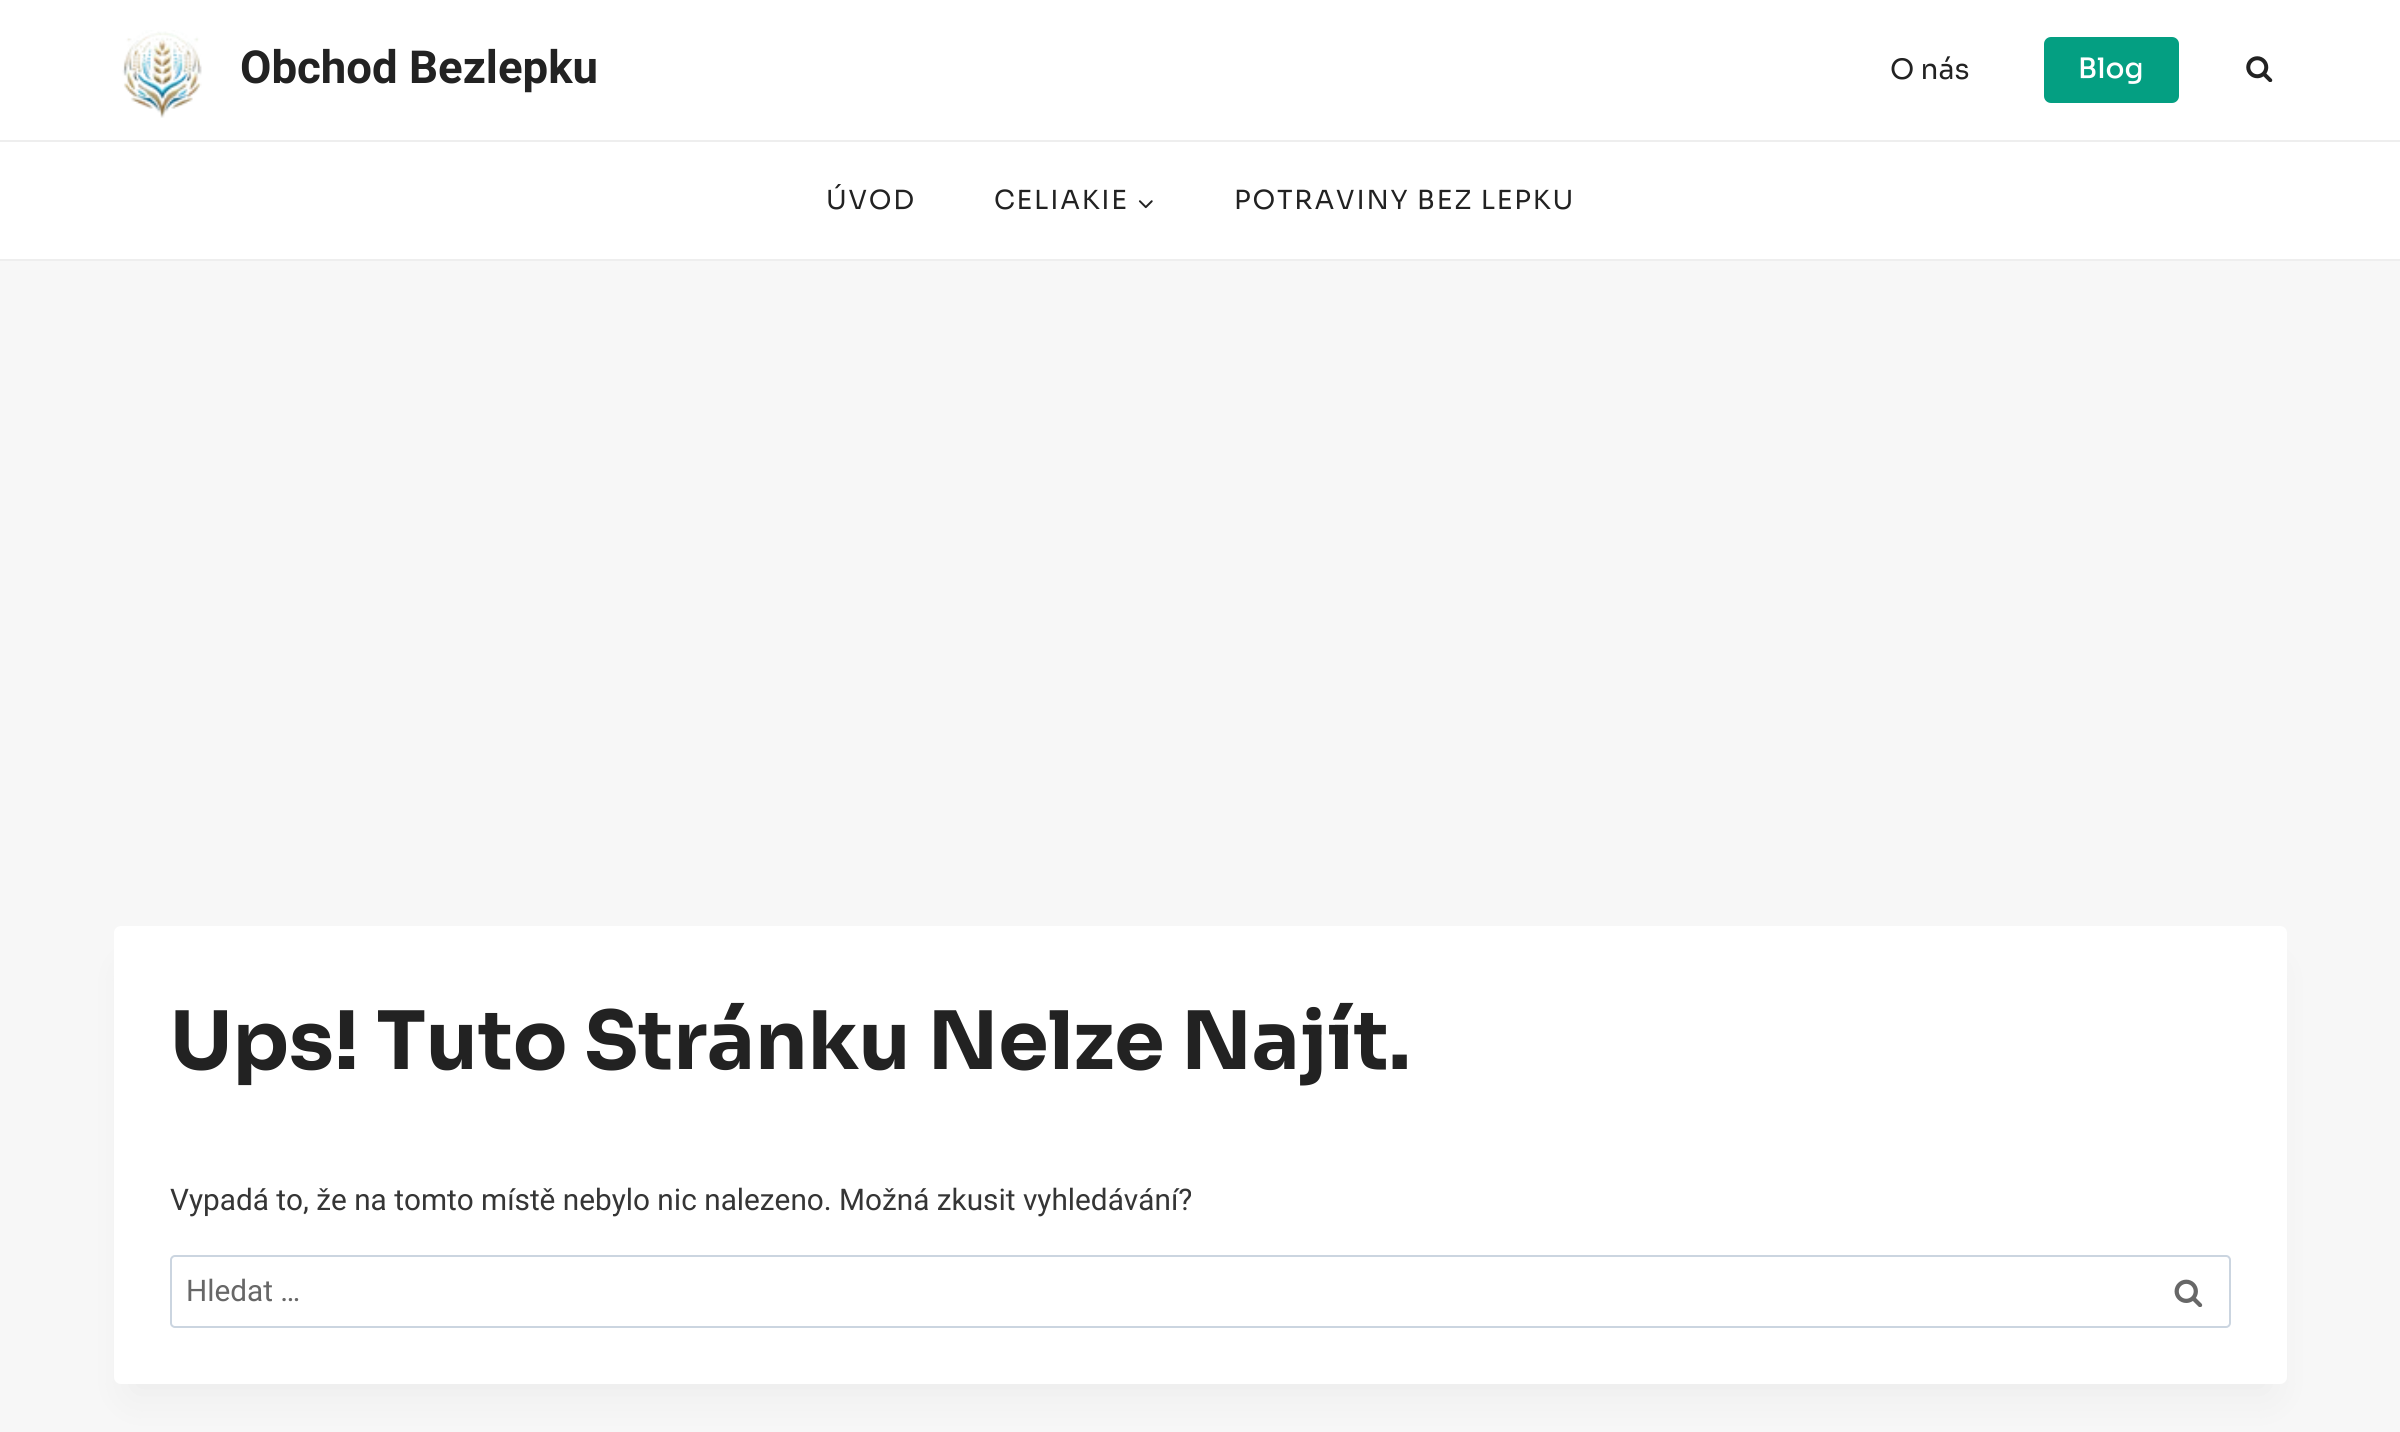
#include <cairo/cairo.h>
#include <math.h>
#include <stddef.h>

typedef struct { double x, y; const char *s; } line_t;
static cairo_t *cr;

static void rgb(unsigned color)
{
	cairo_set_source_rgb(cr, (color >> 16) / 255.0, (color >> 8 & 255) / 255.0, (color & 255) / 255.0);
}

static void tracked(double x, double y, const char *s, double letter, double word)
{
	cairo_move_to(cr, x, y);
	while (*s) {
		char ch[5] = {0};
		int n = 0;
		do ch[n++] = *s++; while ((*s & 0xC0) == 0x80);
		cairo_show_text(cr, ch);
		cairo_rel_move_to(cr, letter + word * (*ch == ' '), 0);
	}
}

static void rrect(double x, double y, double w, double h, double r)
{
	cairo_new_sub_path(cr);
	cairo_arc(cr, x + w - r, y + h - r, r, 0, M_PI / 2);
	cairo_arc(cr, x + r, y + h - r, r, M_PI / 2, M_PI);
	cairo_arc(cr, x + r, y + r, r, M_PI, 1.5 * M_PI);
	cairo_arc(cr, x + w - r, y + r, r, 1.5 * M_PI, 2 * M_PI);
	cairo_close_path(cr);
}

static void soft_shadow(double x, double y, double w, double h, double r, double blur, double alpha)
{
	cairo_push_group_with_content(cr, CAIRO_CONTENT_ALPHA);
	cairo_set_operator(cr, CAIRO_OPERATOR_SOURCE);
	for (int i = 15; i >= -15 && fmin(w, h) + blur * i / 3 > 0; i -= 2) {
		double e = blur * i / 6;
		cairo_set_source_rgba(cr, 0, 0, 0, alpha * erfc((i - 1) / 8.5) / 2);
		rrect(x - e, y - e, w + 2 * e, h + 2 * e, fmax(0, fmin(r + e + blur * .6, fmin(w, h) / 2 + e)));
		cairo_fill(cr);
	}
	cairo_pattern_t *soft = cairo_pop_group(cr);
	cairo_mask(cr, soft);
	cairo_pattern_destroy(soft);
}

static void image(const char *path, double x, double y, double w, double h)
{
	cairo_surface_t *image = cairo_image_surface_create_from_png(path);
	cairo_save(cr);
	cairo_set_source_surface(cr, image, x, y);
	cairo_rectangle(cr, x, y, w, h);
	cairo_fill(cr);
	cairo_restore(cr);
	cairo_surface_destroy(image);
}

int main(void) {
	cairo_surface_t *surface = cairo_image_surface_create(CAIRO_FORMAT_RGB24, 2400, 1432);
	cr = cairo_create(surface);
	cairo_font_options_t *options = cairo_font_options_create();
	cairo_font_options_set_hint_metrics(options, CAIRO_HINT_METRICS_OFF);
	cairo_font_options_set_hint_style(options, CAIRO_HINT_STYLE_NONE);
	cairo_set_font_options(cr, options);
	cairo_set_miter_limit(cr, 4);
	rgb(0xf7f7f7);
	cairo_paint(cr);
	rgb(0xffffff);
	cairo_rectangle(cr, 0, 0, 2400, 259);
	cairo_fill(cr);
	image("img/1.png", 122, 30, 80, 88);
	rgb(0x049f82);
	rrect(2044, 37, 135, 66, 7);
	cairo_fill(cr);
	image("img/2.png", 2246, 56, 27, 26);
	rgb(0xeeeeee);
	cairo_rectangle(cr, 0, 140, 2400, 2);
	cairo_fill(cr);
	cairo_rectangle(cr, 0, 259, 2400, 2);
	cairo_fill(cr);
	image("img/3.png", 1138, 200, 15, 9);
	rgb(0x000000);
	soft_shadow(131, 970, 2139, 423, 0, 22, 0.05);
	rgb(0xffffff);
	rrect(114, 926, 2173, 458, 7);
	cairo_fill(cr);
	rrect(171, 1256, 2059, 71, 4);
	rgb(0xcbd5e0);
	cairo_stroke(cr);
	image("img/4.png", 2174, 1279, 29, 28);
	cairo_select_font_face(cr, "Heebo", CAIRO_FONT_SLANT_NORMAL, CAIRO_FONT_WEIGHT_BOLD);
	cairo_set_font_size(cr, 45.5);
	rgb(0x222222);
	cairo_move_to(cr, 240, 83);
	cairo_show_text(cr, "Obchod Bezlepku");
	cairo_select_font_face(cr, "Sora", CAIRO_FONT_SLANT_NORMAL, CAIRO_FONT_WEIGHT_NORMAL);
	cairo_set_font_size(cr, 28);
	cairo_move_to(cr, 1890, 79);
	cairo_show_text(cr, "O nás");
	cairo_select_font_face(cr, "Sora Medium", CAIRO_FONT_SLANT_NORMAL, CAIRO_FONT_WEIGHT_NORMAL);
	rgb(0xffffff);
	cairo_move_to(cr, 2078, 78);
	cairo_show_text(cr, "Blog");
	cairo_select_font_face(cr, "Sora", CAIRO_FONT_SLANT_NORMAL, CAIRO_FONT_WEIGHT_NORMAL);
	cairo_set_font_size(cr, 26.25);
	rgb(0x222222);
	{
		static const line_t items[] = {
			{826, 209, "ÚVOD"},
			{994, 209, "CELIAKIE"},
			{1234, 209, "POTRAVINY BEZ LEPKU"},
		};
		for (size_t i = 0; i < sizeof items / sizeof *items; i++) {
			tracked(items[i].x, items[i].y, items[i].s, 1.75, 0);
		}
	}
	cairo_select_font_face(cr, "Sora", CAIRO_FONT_SLANT_NORMAL, CAIRO_FONT_WEIGHT_BOLD);
	cairo_set_font_size(cr, 80.5);
	cairo_move_to(cr, 170, 1069);
	cairo_show_text(cr, "Ups! Tuto Stránku Nelze Najít.");
	cairo_select_font_face(cr, "Heebo", CAIRO_FONT_SLANT_NORMAL, CAIRO_FONT_WEIGHT_NORMAL);
	cairo_set_font_size(cr, 29.75);
	rgb(0x353535);
	cairo_move_to(cr, 170, 1210);
	cairo_show_text(cr, "Vypadá to, že na tomto místě nebylo nic nalezeno. Možná zkusit vyhledávání?");
	rgb(0x676767);
	cairo_move_to(cr, 186, 1301);
	cairo_show_text(cr, "Hledat …");
	cairo_surface_write_to_png(surface, "page.png");
	cairo_font_options_destroy(options);
	cairo_destroy(cr);
	cairo_surface_destroy(surface);
	return 0;
}
